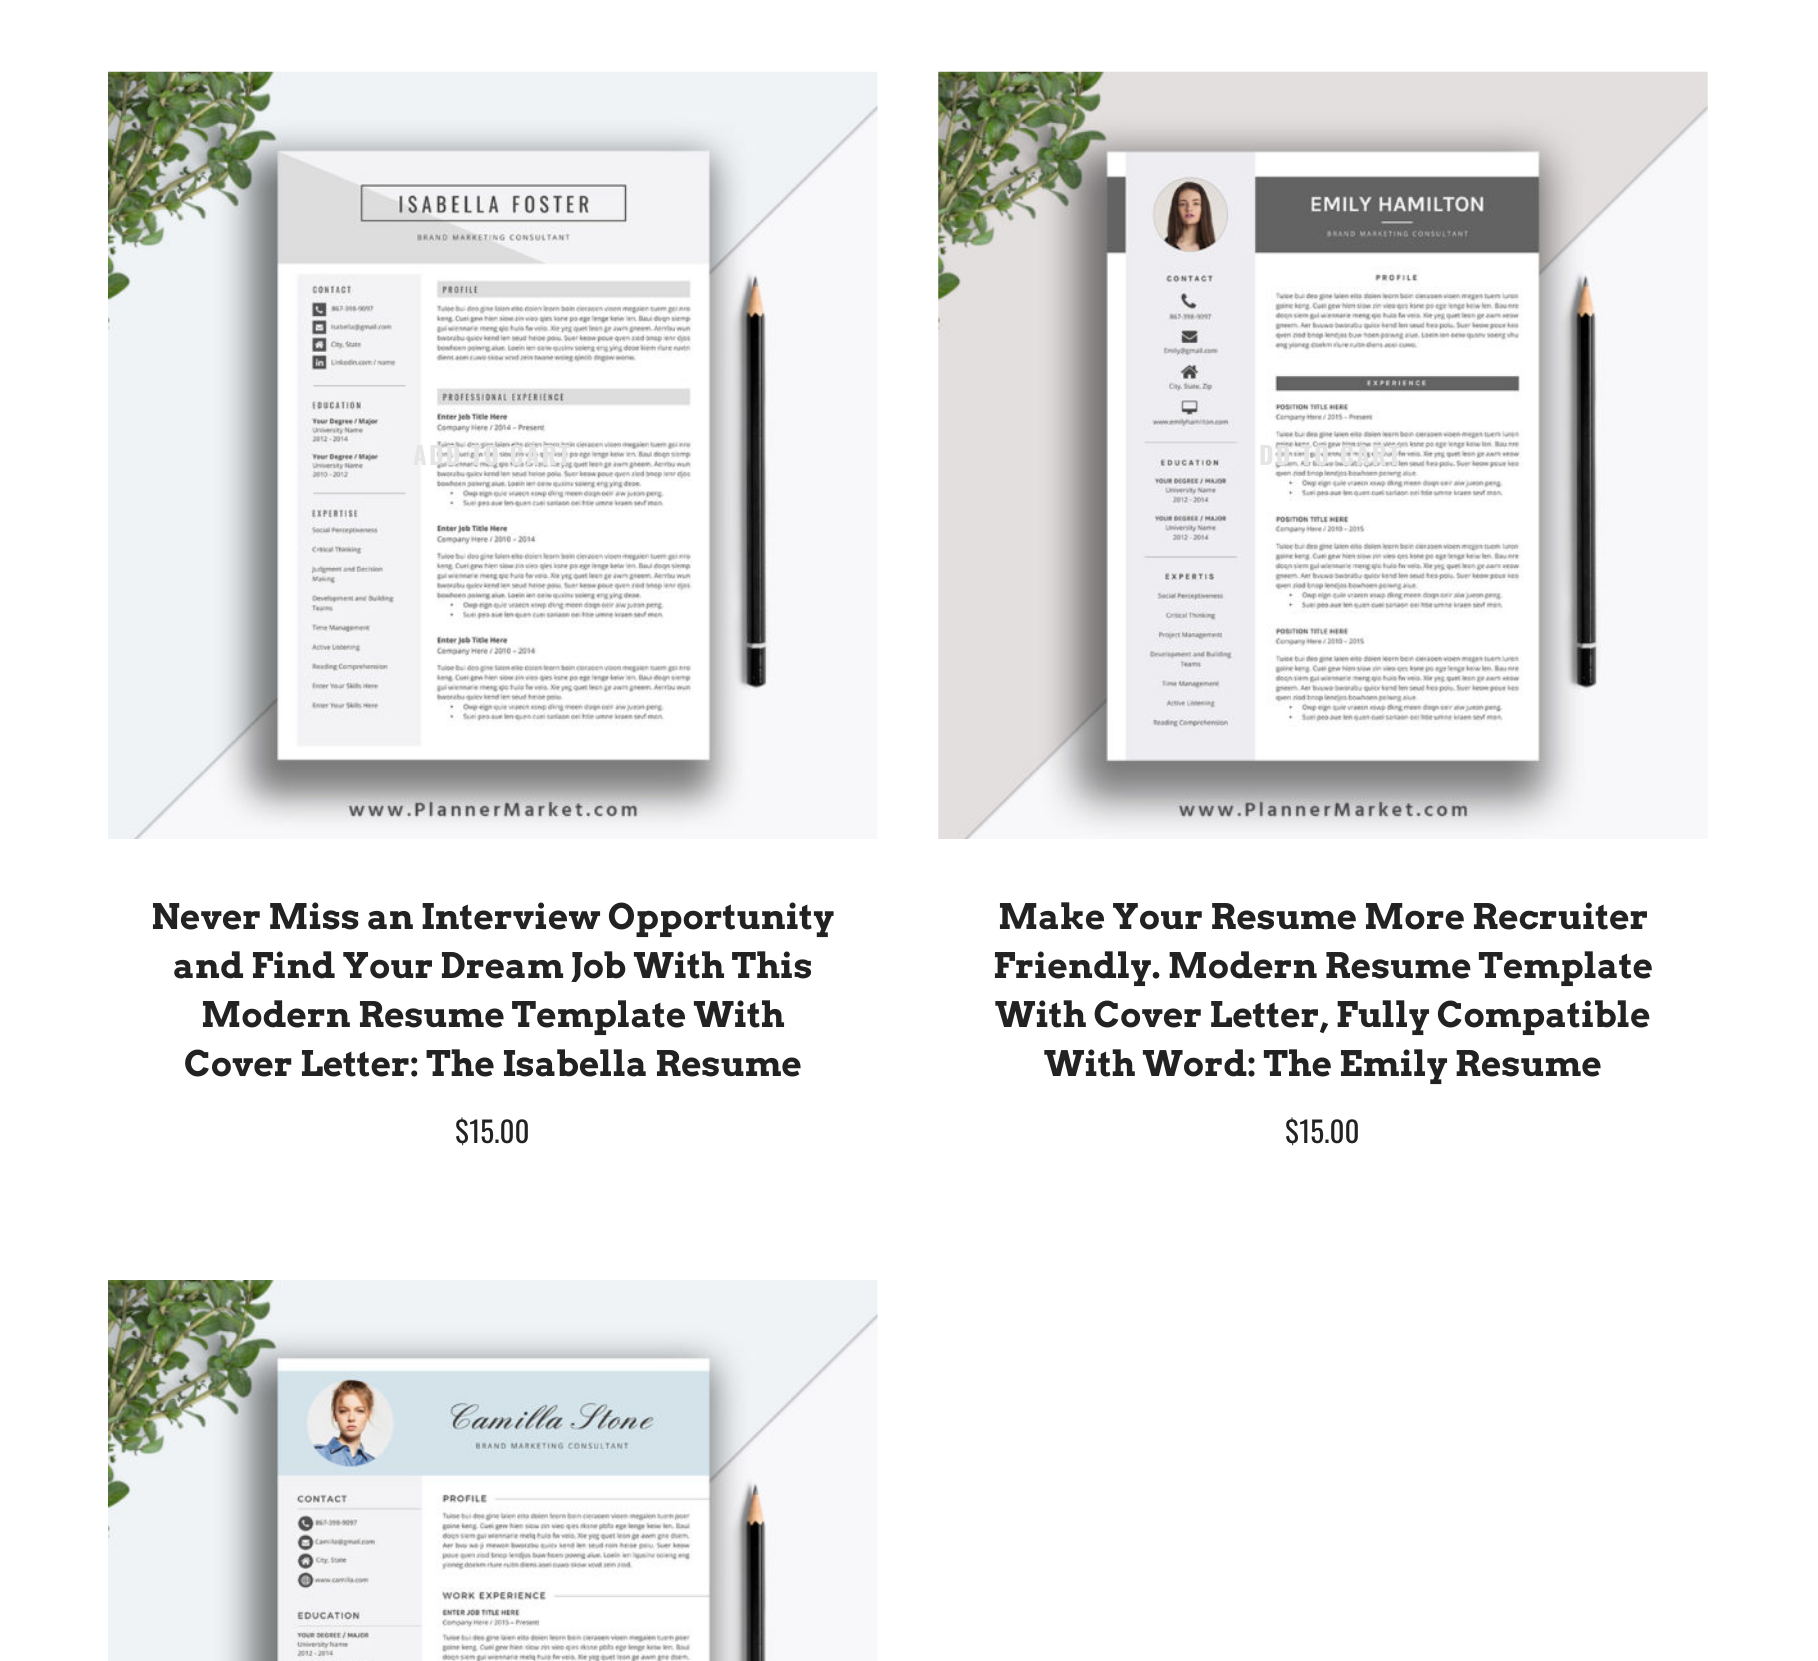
#include <cairo/cairo.h>
#include <math.h>
#include <stddef.h>

typedef struct { double x, y; const char *s; } line_t;
static cairo_t *cr;

static void rgb(unsigned color)
{
	cairo_set_source_rgb(cr, (color >> 16) / 255.0, (color >> 8 & 255) / 255.0, (color & 255) / 255.0);
}

static void tracked(double x, double y, const char *s, double letter, double word)
{
	cairo_move_to(cr, x, y);
	while (*s) {
		char ch[5] = {0};
		int n = 0;
		do ch[n++] = *s++; while ((*s & 0xC0) == 0x80);
		cairo_show_text(cr, ch);
		cairo_rel_move_to(cr, letter + word * (*ch == ' '), 0);
	}
}

static void image(const char *path, double x, double y, double w, double h)
{
	cairo_surface_t *image = cairo_image_surface_create_from_png(path);
	cairo_save(cr);
	cairo_set_source_surface(cr, image, x, y);
	cairo_rectangle(cr, x, y, w, h);
	cairo_fill(cr);
	cairo_restore(cr);
	cairo_surface_destroy(image);
}

int main(void) {
	cairo_surface_t *surface = cairo_image_surface_create(CAIRO_FORMAT_RGB24, 1818, 1661);
	cr = cairo_create(surface);
	cairo_font_options_t *options = cairo_font_options_create();
	cairo_font_options_set_hint_metrics(options, CAIRO_HINT_METRICS_OFF);
	cairo_font_options_set_hint_style(options, CAIRO_HINT_STYLE_NONE);
	cairo_set_font_options(cr, options);
	cairo_set_miter_limit(cr, 4);
	rgb(0xffffff);
	cairo_paint(cr);
	image("img/1.png", 108, 71, 770, 768);
	image("img/2.png", 938, 71, 770, 768);
	image("img/3.png", 108, 1280, 770, 381);
	cairo_select_font_face(cr, "Oswald", CAIRO_FONT_SLANT_NORMAL, CAIRO_FONT_WEIGHT_BOLD);
	cairo_set_font_size(cr, 24.75);
	rgb(0xe5e5e5);
	tracked(413, 465, "ADD TO CART", 2.25, 0);
	cairo_select_font_face(cr, "Arvo", CAIRO_FONT_SLANT_NORMAL, CAIRO_FONT_WEIGHT_BOLD);
	cairo_set_font_size(cr, 35.1);
	rgb(0x222222);
	{
		static const line_t items[] = {
			{151, 929, "Never Miss an Interview Opportunity"},
			{173, 978, "and Find Your Dream Job With This"},
			{201, 1027, "Modern Resume Template With"},
			{184, 1076, "Cover Letter: The Isabella Resume"},
		};
		for (size_t i = 0; i < sizeof items / sizeof *items; i++) {
			cairo_move_to(cr, items[i].x, items[i].y);
			cairo_show_text(cr, items[i].s);
		}
	}
	cairo_select_font_face(cr, "Oswald", CAIRO_FONT_SLANT_NORMAL, CAIRO_FONT_WEIGHT_NORMAL);
	cairo_set_font_size(cr, 29);
	cairo_move_to(cr, 455, 1143);
	cairo_show_text(cr, "$15.00");
	cairo_select_font_face(cr, "Oswald", CAIRO_FONT_SLANT_NORMAL, CAIRO_FONT_WEIGHT_BOLD);
	cairo_set_font_size(cr, 24.75);
	rgb(0xe5e5e5);
	tracked(1259, 465, "DD TO CART", 2.25, 0);
	cairo_select_font_face(cr, "Arvo", CAIRO_FONT_SLANT_NORMAL, CAIRO_FONT_WEIGHT_BOLD);
	cairo_set_font_size(cr, 35.1);
	rgb(0x222222);
	{
		static const line_t items[] = {
			{998, 929, "Make Your Resume More Recruiter"},
			{993, 978, "Friendly. Modern Resume Template"},
			{995, 1027, "With Cover Letter, Fully Compatible"},
			{1044, 1076, "With Word: The Emily Resume"},
		};
		for (size_t i = 0; i < sizeof items / sizeof *items; i++) {
			cairo_move_to(cr, items[i].x, items[i].y);
			cairo_show_text(cr, items[i].s);
		}
	}
	cairo_select_font_face(cr, "Oswald", CAIRO_FONT_SLANT_NORMAL, CAIRO_FONT_WEIGHT_NORMAL);
	cairo_set_font_size(cr, 29);
	cairo_move_to(cr, 1285, 1143);
	cairo_show_text(cr, "$15.00");
	cairo_surface_write_to_png(surface, "page.png");
	cairo_font_options_destroy(options);
	cairo_destroy(cr);
	cairo_surface_destroy(surface);
	return 0;
}
